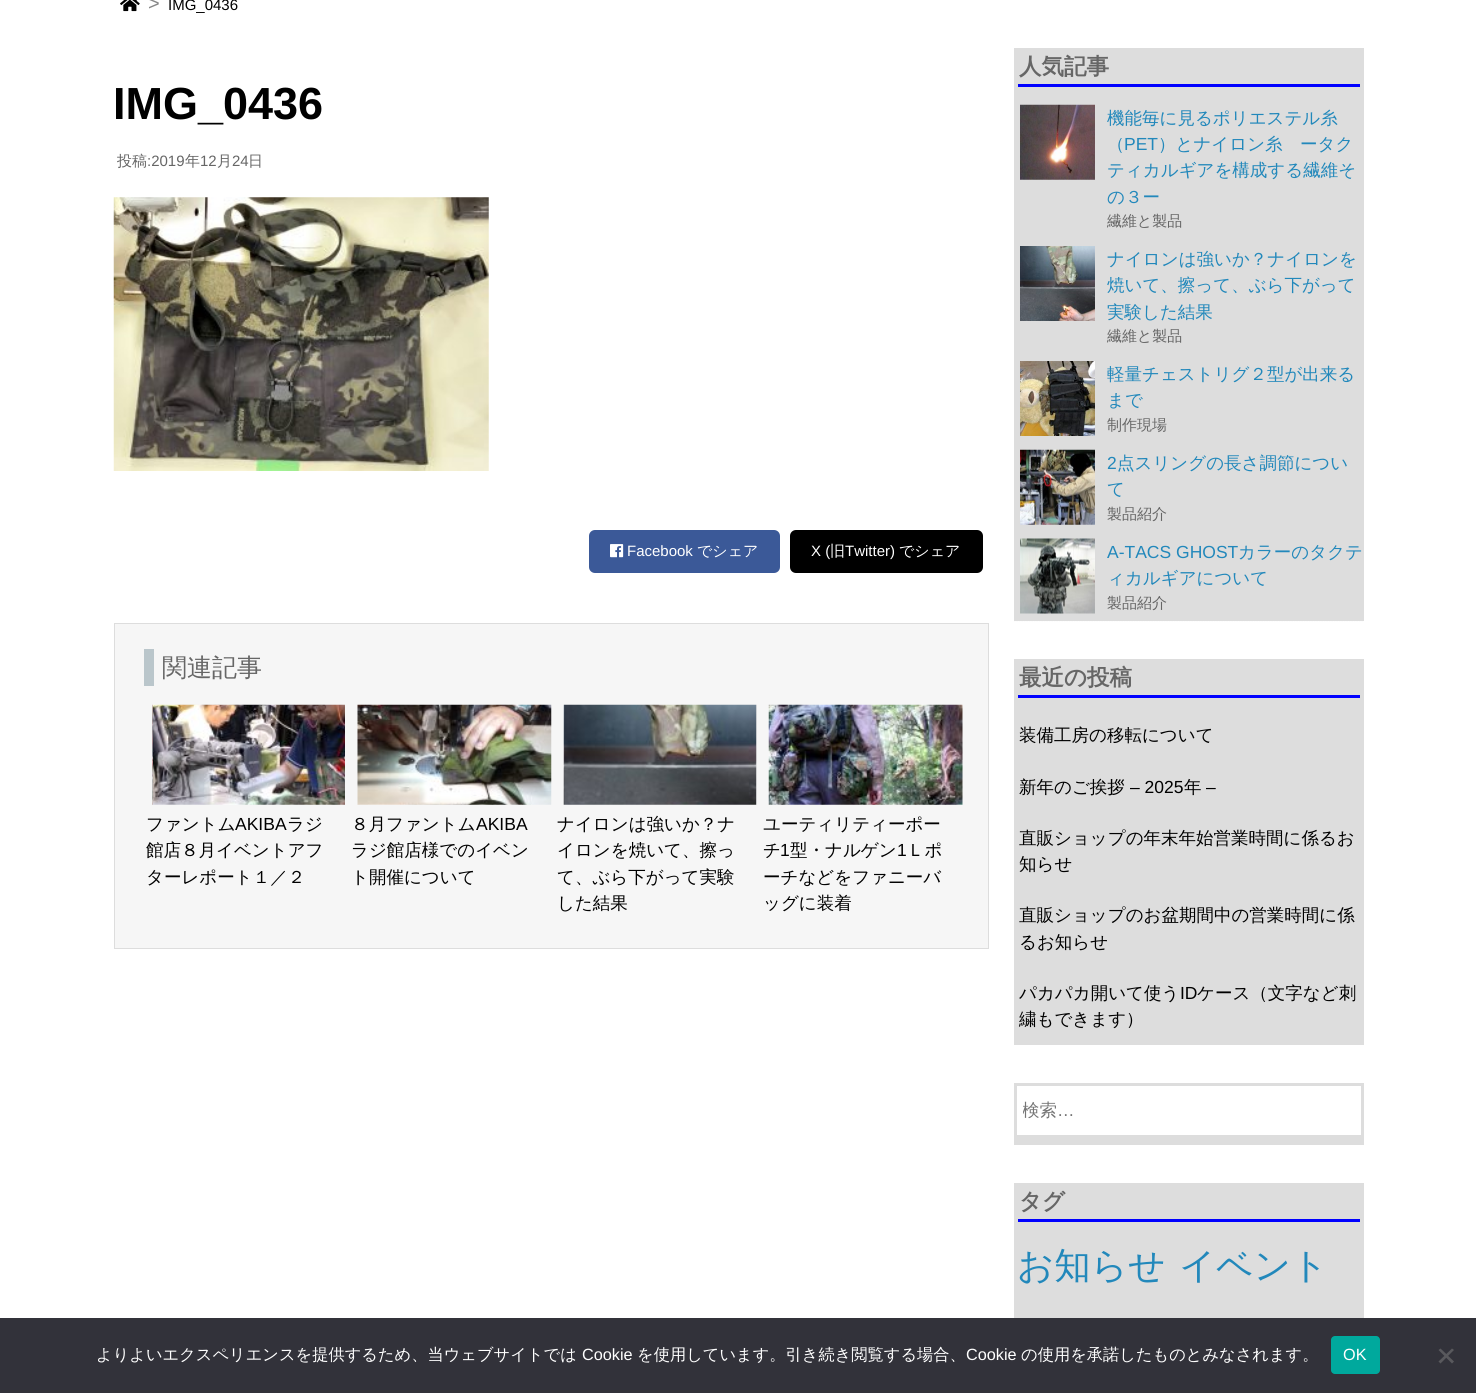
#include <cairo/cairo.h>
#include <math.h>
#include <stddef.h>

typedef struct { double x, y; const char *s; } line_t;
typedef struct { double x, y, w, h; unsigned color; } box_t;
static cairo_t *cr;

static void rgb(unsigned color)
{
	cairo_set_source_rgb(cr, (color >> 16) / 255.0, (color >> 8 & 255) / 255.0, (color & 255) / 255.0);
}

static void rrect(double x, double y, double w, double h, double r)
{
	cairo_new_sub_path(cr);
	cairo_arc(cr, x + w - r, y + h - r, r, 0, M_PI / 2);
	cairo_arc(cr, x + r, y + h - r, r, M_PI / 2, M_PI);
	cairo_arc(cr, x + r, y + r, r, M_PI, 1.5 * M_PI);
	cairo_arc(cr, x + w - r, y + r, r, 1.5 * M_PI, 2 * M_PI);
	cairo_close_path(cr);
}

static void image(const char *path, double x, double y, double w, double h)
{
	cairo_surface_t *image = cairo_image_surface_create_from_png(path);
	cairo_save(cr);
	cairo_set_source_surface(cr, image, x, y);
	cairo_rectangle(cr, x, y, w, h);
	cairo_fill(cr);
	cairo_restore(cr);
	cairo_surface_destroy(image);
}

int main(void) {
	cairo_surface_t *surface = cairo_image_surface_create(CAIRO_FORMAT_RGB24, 1476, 1393);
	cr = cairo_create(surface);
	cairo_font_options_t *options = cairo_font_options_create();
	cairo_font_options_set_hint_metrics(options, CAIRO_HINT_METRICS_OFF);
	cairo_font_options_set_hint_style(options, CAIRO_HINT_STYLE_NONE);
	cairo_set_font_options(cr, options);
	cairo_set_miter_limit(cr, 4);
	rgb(0xffffff);
	cairo_paint(cr);
	image("img/1.png", 120, 0, 20, 12);
	image("img/2.png", 113, 197, 376, 274);
	rgb(0x3b5998);
	rrect(589, 530, 191, 43, 6);
	cairo_fill(cr);
	image("img/3.png", 610, 544, 14, 14);
	rgb(0x000000);
	rrect(790, 530, 193, 43, 6);
	cairo_fill(cr);
	rgb(0xf6f6f6);
	cairo_rectangle(cr, 114.5, 623.5, 874, 325);
	cairo_fill_preserve(cr);
	rgb(0xdddddd);
	cairo_set_line_width(cr, 1);
	cairo_stroke(cr);
	rgb(0xbac6cb);
	cairo_rectangle(cr, 144, 649, 10, 37);
	cairo_fill(cr);
	image("img/4.png", 152, 704, 193, 101);
	image("img/5.png", 357, 704, 195, 101);
	image("img/6.png", 563, 704, 194, 101);
	image("img/7.png", 768, 704, 195, 101);
	rgb(0xdddddd);
	cairo_rectangle(cr, 1014, 48, 350, 573);
	cairo_fill(cr);
	rgb(0x0000ff);
	cairo_rectangle(cr, 1018, 84, 342, 3);
	cairo_fill(cr);
	image("img/8.png", 1020, 104, 75, 76);
	image("img/9.png", 1020, 246, 75, 75);
	image("img/10.png", 1020, 361, 75, 75);
	image("img/11.png", 1020, 449, 75, 76);
	cairo_new_path(cr);
	cairo_move_to(cr, 1014, 620.5);
	cairo_line_to(cr, 1364, 620.5);
	rgb(0xdddddd);
	cairo_set_line_width(cr, 1.2);
	cairo_set_dash(cr, (double[]){1.25, 1.25}, 2, 0);
	cairo_stroke(cr);
	image("img/12.png", 1020, 538, 75, 76);
	{
		static const box_t items[] = {
			{1014, 659, 350, 386, 0xdddddd},
			{1018, 695, 342, 3, 0x0000ff},
			{1014, 1138, 350, 7, 0xdddddd},
		};
		for (size_t i = 0; i < sizeof items / sizeof *items; i++) {
			rgb(items[i].color);
			cairo_rectangle(cr, items[i].x, items[i].y, items[i].w, items[i].h);
			cairo_fill(cr);
		}
	}
	cairo_rectangle(cr, 1015.5, 1084.5, 347, 52);
	cairo_set_line_width(cr, 3);
	cairo_set_dash(cr, NULL, 0, 0);
	cairo_stroke(cr);
	{
		static const box_t items[] = {
			{1014, 1183, 350, 135, 0xdddddd},
			{1018, 1219, 342, 3, 0x0000ff},
			{0, 1318, 1476, 75, 0x32323a},
		};
		for (size_t i = 0; i < sizeof items / sizeof *items; i++) {
			rgb(items[i].color);
			cairo_rectangle(cr, items[i].x, items[i].y, items[i].w, items[i].h);
			cairo_fill(cr);
		}
	}
	rgb(0x00a99d);
	rrect(1331, 1336, 49, 38, 4);
	cairo_fill(cr);
	rgb(0x59595d);
	cairo_new_path(cr);
	cairo_move_to(cr, 1452, 1348.5);
	cairo_line_to(cr, 1454, 1350);
	cairo_line_to(cr, 1440.5, 1363.5);
	cairo_line_to(cr, 1438.5, 1361.5);
	cairo_close_path(cr);
	cairo_fill(cr);
	cairo_new_path(cr);
	cairo_move_to(cr, 1438.5, 1350);
	cairo_line_to(cr, 1440.5, 1348.5);
	cairo_line_to(cr, 1454, 1361.5);
	cairo_line_to(cr, 1452, 1363.5);
	cairo_close_path(cr);
	cairo_fill(cr);
	cairo_select_font_face(cr, "Liberation Sans", CAIRO_FONT_SLANT_NORMAL, CAIRO_FONT_WEIGHT_NORMAL);
	cairo_set_font_size(cr, 20);
	rgb(0x888888);
	cairo_move_to(cr, 148, 10);
	cairo_show_text(cr, ">");
	cairo_set_font_size(cr, 15);
	rgb(0x000000);
	cairo_move_to(cr, 168, 10);
	cairo_show_text(cr, "IMG_0436");
	cairo_select_font_face(cr, "Liberation Sans", CAIRO_FONT_SLANT_NORMAL, CAIRO_FONT_WEIGHT_BOLD);
	cairo_set_font_size(cr, 45);
	cairo_move_to(cr, 113, 119);
	cairo_show_text(cr, "IMG_0436");
	cairo_select_font_face(cr, "WenQuanYi Zen Hei Medium", CAIRO_FONT_SLANT_NORMAL, CAIRO_FONT_WEIGHT_NORMAL);
	cairo_set_font_size(cr, 15);
	rgb(0x666666);
	cairo_move_to(cr, 117, 166);
	cairo_show_text(cr, "投稿");
	cairo_select_font_face(cr, "Liberation Sans", CAIRO_FONT_SLANT_NORMAL, CAIRO_FONT_WEIGHT_NORMAL);
	cairo_move_to(cr, 147, 166);
	cairo_show_text(cr, ":2019");
	cairo_select_font_face(cr, "WenQuanYi Zen Hei Medium", CAIRO_FONT_SLANT_NORMAL, CAIRO_FONT_WEIGHT_NORMAL);
	cairo_move_to(cr, 185, 166);
	cairo_show_text(cr, "年");
	cairo_select_font_face(cr, "Liberation Sans", CAIRO_FONT_SLANT_NORMAL, CAIRO_FONT_WEIGHT_NORMAL);
	cairo_move_to(cr, 200, 166);
	cairo_show_text(cr, "12");
	cairo_select_font_face(cr, "WenQuanYi Zen Hei Medium", CAIRO_FONT_SLANT_NORMAL, CAIRO_FONT_WEIGHT_NORMAL);
	cairo_move_to(cr, 217, 166);
	cairo_show_text(cr, "月");
	cairo_select_font_face(cr, "Liberation Sans", CAIRO_FONT_SLANT_NORMAL, CAIRO_FONT_WEIGHT_NORMAL);
	cairo_move_to(cr, 232, 166);
	cairo_show_text(cr, "24");
	cairo_select_font_face(cr, "WenQuanYi Zen Hei Medium", CAIRO_FONT_SLANT_NORMAL, CAIRO_FONT_WEIGHT_NORMAL);
	cairo_move_to(cr, 248, 166);
	cairo_show_text(cr, "日");
	cairo_select_font_face(cr, "Liberation Sans", CAIRO_FONT_SLANT_NORMAL, CAIRO_FONT_WEIGHT_NORMAL);
	rgb(0xffffff);
	cairo_move_to(cr, 627, 556);
	cairo_show_text(cr, "Facebook");
	cairo_select_font_face(cr, "WenQuanYi Zen Hei Medium", CAIRO_FONT_SLANT_NORMAL, CAIRO_FONT_WEIGHT_NORMAL);
	cairo_move_to(cr, 697, 556);
	cairo_show_text(cr, "でシェア");
	cairo_select_font_face(cr, "Liberation Sans", CAIRO_FONT_SLANT_NORMAL, CAIRO_FONT_WEIGHT_NORMAL);
	cairo_move_to(cr, 811, 556);
	cairo_show_text(cr, "X (");
	cairo_select_font_face(cr, "WenQuanYi Zen Hei Medium", CAIRO_FONT_SLANT_NORMAL, CAIRO_FONT_WEIGHT_NORMAL);
	cairo_move_to(cr, 830, 556);
	cairo_show_text(cr, "旧");
	cairo_select_font_face(cr, "Liberation Sans", CAIRO_FONT_SLANT_NORMAL, CAIRO_FONT_WEIGHT_NORMAL);
	cairo_move_to(cr, 845, 556);
	cairo_show_text(cr, "Twitter)");
	cairo_select_font_face(cr, "WenQuanYi Zen Hei Medium", CAIRO_FONT_SLANT_NORMAL, CAIRO_FONT_WEIGHT_NORMAL);
	cairo_move_to(cr, 899, 556);
	cairo_show_text(cr, "でシェア");
	cairo_set_font_size(cr, 25);
	rgb(0x666666);
	cairo_move_to(cr, 162, 676);
	cairo_show_text(cr, "関連記事");
	cairo_set_font_size(cr, 17.5);
	rgb(0x000000);
	cairo_move_to(cr, 146, 830);
	cairo_show_text(cr, "ファントム");
	cairo_select_font_face(cr, "Liberation Sans", CAIRO_FONT_SLANT_NORMAL, CAIRO_FONT_WEIGHT_NORMAL);
	cairo_move_to(cr, 235, 830);
	cairo_show_text(cr, "AKIBA");
	cairo_select_font_face(cr, "WenQuanYi Zen Hei Medium", CAIRO_FONT_SLANT_NORMAL, CAIRO_FONT_WEIGHT_NORMAL);
	{
		static const line_t items[] = {
			{287, 830, "ラジ"},
			{146, 856, "館店８月イベントアフ"},
			{146, 883, "ターレポート１／２"},
			{351, 830, "８月ファントム"},
		};
		for (size_t i = 0; i < sizeof items / sizeof *items; i++) {
			cairo_move_to(cr, items[i].x, items[i].y);
			cairo_show_text(cr, items[i].s);
		}
	}
	cairo_select_font_face(cr, "Liberation Sans", CAIRO_FONT_SLANT_NORMAL, CAIRO_FONT_WEIGHT_NORMAL);
	cairo_move_to(cr, 476, 830);
	cairo_show_text(cr, "AKIBA");
	cairo_select_font_face(cr, "WenQuanYi Zen Hei Medium", CAIRO_FONT_SLANT_NORMAL, CAIRO_FONT_WEIGHT_NORMAL);
	{
		static const line_t items[] = {
			{351, 856, "ラジ館店様でのイベン"},
			{351, 883, "ト開催について"},
			{557, 830, "ナイロンは強いか？ナ"},
			{557, 856, "イロンを焼いて、擦っ"},
			{557, 883, "て、ぶら下がって実験"},
			{557, 909, "した結果"},
			{763, 830, "ユーティリティーポー"},
			{763, 856, "チ"},
		};
		for (size_t i = 0; i < sizeof items / sizeof *items; i++) {
			cairo_move_to(cr, items[i].x, items[i].y);
			cairo_show_text(cr, items[i].s);
		}
	}
	cairo_select_font_face(cr, "Liberation Sans", CAIRO_FONT_SLANT_NORMAL, CAIRO_FONT_WEIGHT_NORMAL);
	cairo_move_to(cr, 780, 856);
	cairo_show_text(cr, "1");
	cairo_select_font_face(cr, "WenQuanYi Zen Hei Medium", CAIRO_FONT_SLANT_NORMAL, CAIRO_FONT_WEIGHT_NORMAL);
	cairo_move_to(cr, 790, 856);
	cairo_show_text(cr, "型・ナルゲン");
	cairo_select_font_face(cr, "Liberation Sans", CAIRO_FONT_SLANT_NORMAL, CAIRO_FONT_WEIGHT_NORMAL);
	cairo_move_to(cr, 897, 856);
	cairo_show_text(cr, "1");
	cairo_select_font_face(cr, "WenQuanYi Zen Hei Medium", CAIRO_FONT_SLANT_NORMAL, CAIRO_FONT_WEIGHT_NORMAL);
	{
		static const line_t items[] = {
			{907, 856, "Ｌポ"},
			{763, 883, "ーチなどをファニーバ"},
			{763, 909, "ッグに装着"},
		};
		for (size_t i = 0; i < sizeof items / sizeof *items; i++) {
			cairo_move_to(cr, items[i].x, items[i].y);
			cairo_show_text(cr, items[i].s);
		}
	}
	cairo_select_font_face(cr, "WenQuanYi Zen Hei", CAIRO_FONT_SLANT_NORMAL, CAIRO_FONT_WEIGHT_BOLD);
	cairo_set_font_size(cr, 22.5);
	rgb(0x666666);
	cairo_move_to(cr, 1019, 74);
	cairo_show_text(cr, "人気記事");
	cairo_select_font_face(cr, "WenQuanYi Zen Hei Medium", CAIRO_FONT_SLANT_NORMAL, CAIRO_FONT_WEIGHT_NORMAL);
	cairo_set_font_size(cr, 17.5);
	rgb(0x2288bb);
	cairo_move_to(cr, 1107, 124);
	cairo_show_text(cr, "機能毎に見るポリエステル糸");
	cairo_move_to(cr, 1107, 150);
	cairo_show_text(cr, "（");
	cairo_select_font_face(cr, "Liberation Sans", CAIRO_FONT_SLANT_NORMAL, CAIRO_FONT_WEIGHT_NORMAL);
	cairo_move_to(cr, 1124, 150);
	cairo_show_text(cr, "PET");
	cairo_select_font_face(cr, "WenQuanYi Zen Hei Medium", CAIRO_FONT_SLANT_NORMAL, CAIRO_FONT_WEIGHT_NORMAL);
	{
		static const line_t items[] = {
			{1158, 150, "）とナイロン糸　ータク"},
			{1107, 176, "ティカルギアを構成する繊維そ"},
			{1107, 203, "の３ー"},
		};
		for (size_t i = 0; i < sizeof items / sizeof *items; i++) {
			cairo_move_to(cr, items[i].x, items[i].y);
			cairo_show_text(cr, items[i].s);
		}
	}
	cairo_set_font_size(cr, 15);
	rgb(0x666666);
	cairo_move_to(cr, 1107, 226);
	cairo_show_text(cr, "繊維と製品");
	cairo_set_font_size(cr, 17.5);
	rgb(0x2288bb);
	{
		static const line_t items[] = {
			{1107, 265, "ナイロンは強いか？ナイロンを"},
			{1107, 291, "焼いて、擦って、ぶら下がって"},
			{1107, 318, "実験した結果"},
		};
		for (size_t i = 0; i < sizeof items / sizeof *items; i++) {
			cairo_move_to(cr, items[i].x, items[i].y);
			cairo_show_text(cr, items[i].s);
		}
	}
	cairo_set_font_size(cr, 15);
	rgb(0x666666);
	cairo_move_to(cr, 1107, 341);
	cairo_show_text(cr, "繊維と製品");
	cairo_set_font_size(cr, 17.5);
	rgb(0x2288bb);
	cairo_move_to(cr, 1107, 380);
	cairo_show_text(cr, "軽量チェストリグ２型が出来る");
	cairo_move_to(cr, 1107, 406);
	cairo_show_text(cr, "まで");
	cairo_set_font_size(cr, 15);
	rgb(0x666666);
	cairo_move_to(cr, 1107, 430);
	cairo_show_text(cr, "制作現場");
	cairo_select_font_face(cr, "Liberation Sans", CAIRO_FONT_SLANT_NORMAL, CAIRO_FONT_WEIGHT_NORMAL);
	cairo_set_font_size(cr, 17.5);
	rgb(0x2288bb);
	cairo_move_to(cr, 1107, 469);
	cairo_show_text(cr, "2");
	cairo_select_font_face(cr, "WenQuanYi Zen Hei Medium", CAIRO_FONT_SLANT_NORMAL, CAIRO_FONT_WEIGHT_NORMAL);
	cairo_move_to(cr, 1117, 469);
	cairo_show_text(cr, "点スリングの長さ調節につい");
	cairo_move_to(cr, 1107, 495);
	cairo_show_text(cr, "て");
	cairo_set_font_size(cr, 15);
	rgb(0x666666);
	cairo_move_to(cr, 1107, 519);
	cairo_show_text(cr, "製品紹介");
	cairo_select_font_face(cr, "Liberation Sans", CAIRO_FONT_SLANT_NORMAL, CAIRO_FONT_WEIGHT_NORMAL);
	cairo_set_font_size(cr, 17.5);
	rgb(0x2288bb);
	cairo_move_to(cr, 1107, 558);
	cairo_show_text(cr, "A-TACS GHOST");
	cairo_select_font_face(cr, "WenQuanYi Zen Hei Medium", CAIRO_FONT_SLANT_NORMAL, CAIRO_FONT_WEIGHT_NORMAL);
	cairo_move_to(cr, 1238, 558);
	cairo_show_text(cr, "カラーのタクテ");
	cairo_move_to(cr, 1107, 584);
	cairo_show_text(cr, "ィカルギアについて");
	cairo_set_font_size(cr, 15);
	rgb(0x666666);
	cairo_move_to(cr, 1107, 608);
	cairo_show_text(cr, "製品紹介");
	cairo_select_font_face(cr, "WenQuanYi Zen Hei", CAIRO_FONT_SLANT_NORMAL, CAIRO_FONT_WEIGHT_BOLD);
	cairo_set_font_size(cr, 22.5);
	cairo_move_to(cr, 1019, 685);
	cairo_show_text(cr, "最近の投稿");
	cairo_select_font_face(cr, "WenQuanYi Zen Hei Medium", CAIRO_FONT_SLANT_NORMAL, CAIRO_FONT_WEIGHT_NORMAL);
	cairo_set_font_size(cr, 17.5);
	rgb(0x000000);
	cairo_move_to(cr, 1019, 741);
	cairo_show_text(cr, "装備工房の移転について");
	cairo_move_to(cr, 1019, 793);
	cairo_show_text(cr, "新年のご挨拶");
	cairo_select_font_face(cr, "Liberation Sans", CAIRO_FONT_SLANT_NORMAL, CAIRO_FONT_WEIGHT_NORMAL);
	cairo_move_to(cr, 1130, 793);
	cairo_show_text(cr, "– 2025");
	cairo_select_font_face(cr, "WenQuanYi Zen Hei Medium", CAIRO_FONT_SLANT_NORMAL, CAIRO_FONT_WEIGHT_NORMAL);
	cairo_move_to(cr, 1184, 793);
	cairo_show_text(cr, "年");
	cairo_select_font_face(cr, "Liberation Sans", CAIRO_FONT_SLANT_NORMAL, CAIRO_FONT_WEIGHT_NORMAL);
	cairo_move_to(cr, 1206, 793);
	cairo_show_text(cr, "–");
	cairo_select_font_face(cr, "WenQuanYi Zen Hei Medium", CAIRO_FONT_SLANT_NORMAL, CAIRO_FONT_WEIGHT_NORMAL);
	{
		static const line_t items[] = {
			{1019, 844, "直販ショップの年末年始営業時間に係るお"},
			{1019, 870, "知らせ"},
			{1019, 921, "直販ショップのお盆期間中の営業時間に係"},
			{1019, 948, "るお知らせ"},
			{1019, 999, "パカパカ開いて使う"},
		};
		for (size_t i = 0; i < sizeof items / sizeof *items; i++) {
			cairo_move_to(cr, items[i].x, items[i].y);
			cairo_show_text(cr, items[i].s);
		}
	}
	cairo_select_font_face(cr, "Liberation Sans", CAIRO_FONT_SLANT_NORMAL, CAIRO_FONT_WEIGHT_NORMAL);
	cairo_move_to(cr, 1180, 999);
	cairo_show_text(cr, "ID");
	cairo_select_font_face(cr, "WenQuanYi Zen Hei Medium", CAIRO_FONT_SLANT_NORMAL, CAIRO_FONT_WEIGHT_NORMAL);
	cairo_move_to(cr, 1197, 999);
	cairo_show_text(cr, "ケース（文字など刺");
	cairo_move_to(cr, 1019, 1025);
	cairo_show_text(cr, "繍もできます）");
	cairo_save(cr);
	cairo_rectangle(cr, 1023, 1100, 315, 23);
	cairo_clip(cr);
	rgb(0x757575);
	cairo_move_to(cr, 1022, 1116);
	cairo_show_text(cr, "検索");
	cairo_restore(cr);
	cairo_select_font_face(cr, "Liberation Sans", CAIRO_FONT_SLANT_NORMAL, CAIRO_FONT_WEIGHT_NORMAL);
	rgb(0x757575);
	cairo_move_to(cr, 1057, 1116);
	cairo_show_text(cr, "…");
	cairo_select_font_face(cr, "WenQuanYi Zen Hei", CAIRO_FONT_SLANT_NORMAL, CAIRO_FONT_WEIGHT_BOLD);
	cairo_set_font_size(cr, 22.5);
	rgb(0x666666);
	cairo_move_to(cr, 1019, 1209);
	cairo_show_text(cr, "タグ");
	cairo_select_font_face(cr, "WenQuanYi Zen Hei Medium", CAIRO_FONT_SLANT_NORMAL, CAIRO_FONT_WEIGHT_NORMAL);
	cairo_set_font_size(cr, 36.5);
	rgb(0x2288bb);
	cairo_move_to(cr, 1017, 1278);
	cairo_show_text(cr, "お知らせ");
	cairo_move_to(cr, 1179, 1278);
	cairo_show_text(cr, "イベント");
	cairo_set_font_size(cr, 16.25);
	rgb(0xffffff);
	cairo_move_to(cr, 96, 1360);
	cairo_show_text(cr, "よりよいエクスペリエンスを提供するため、当ウェブサイトでは");
	cairo_select_font_face(cr, "Liberation Sans", CAIRO_FONT_SLANT_NORMAL, CAIRO_FONT_WEIGHT_NORMAL);
	cairo_move_to(cr, 582, 1360);
	cairo_show_text(cr, "Cookie");
	cairo_select_font_face(cr, "WenQuanYi Zen Hei Medium", CAIRO_FONT_SLANT_NORMAL, CAIRO_FONT_WEIGHT_NORMAL);
	cairo_move_to(cr, 637, 1360);
	cairo_show_text(cr, "を使用しています。引き続き閲覧する場合、");
	cairo_select_font_face(cr, "Liberation Sans", CAIRO_FONT_SLANT_NORMAL, CAIRO_FONT_WEIGHT_NORMAL);
	cairo_move_to(cr, 966, 1360);
	cairo_show_text(cr, "Cookie");
	cairo_select_font_face(cr, "WenQuanYi Zen Hei Medium", CAIRO_FONT_SLANT_NORMAL, CAIRO_FONT_WEIGHT_NORMAL);
	cairo_move_to(cr, 1021, 1360);
	cairo_show_text(cr, "の使用を承諾したものとみなされます。");
	cairo_select_font_face(cr, "Liberation Sans", CAIRO_FONT_SLANT_NORMAL, CAIRO_FONT_WEIGHT_NORMAL);
	cairo_move_to(cr, 1343, 1360);
	cairo_show_text(cr, "OK");
	cairo_surface_write_to_png(surface, "page.png");
	cairo_font_options_destroy(options);
	cairo_destroy(cr);
	cairo_surface_destroy(surface);
	return 0;
}
